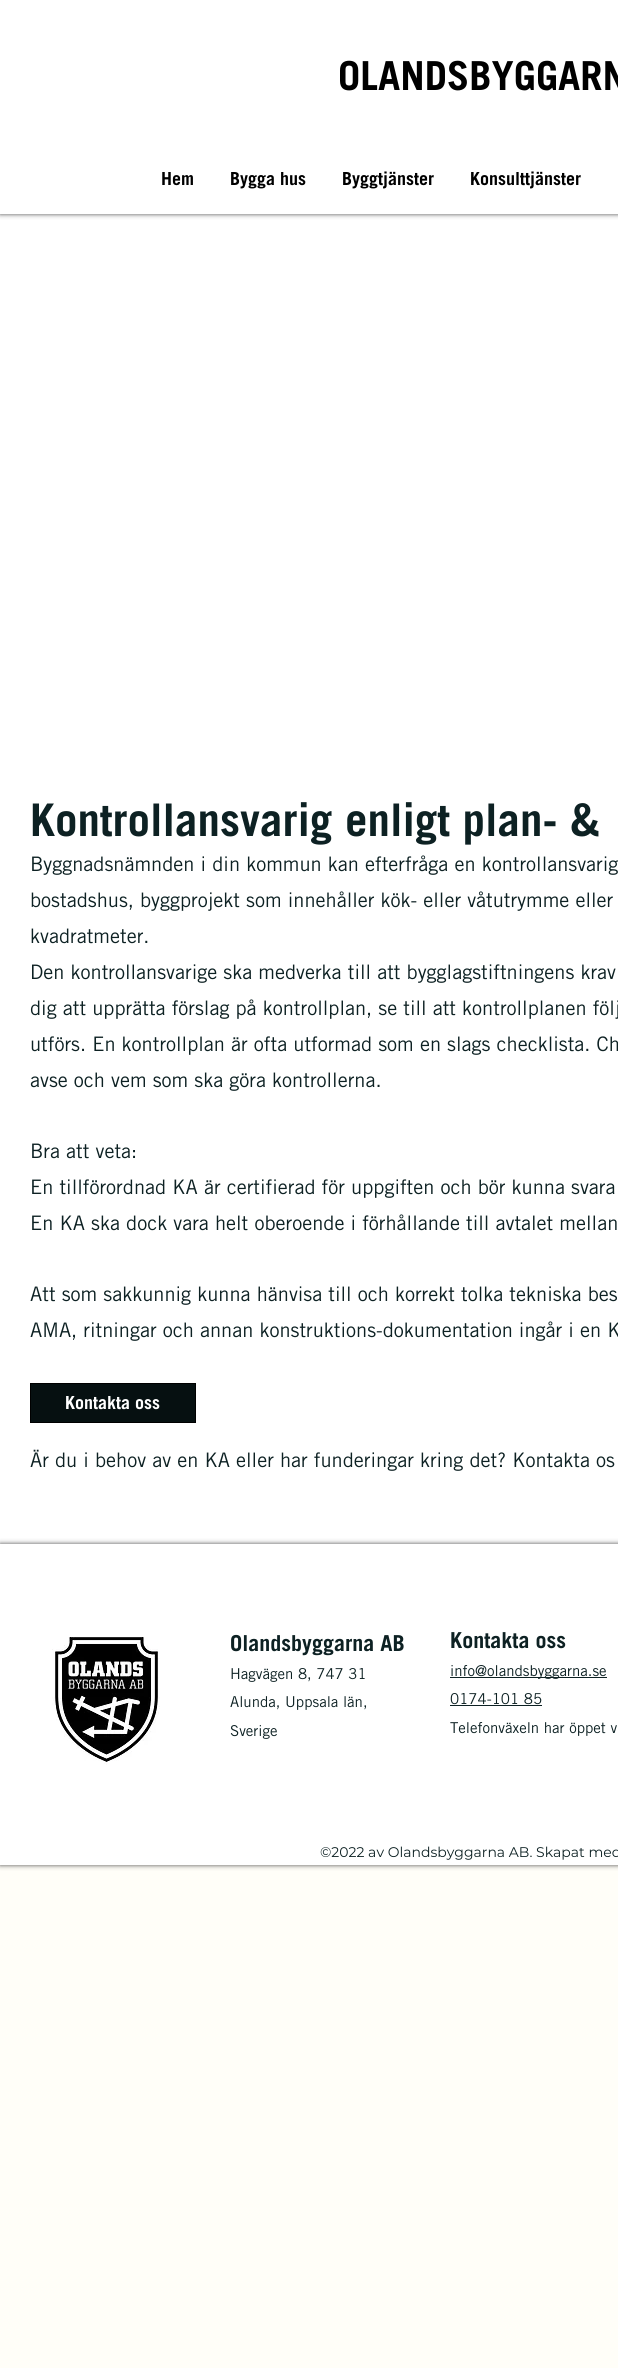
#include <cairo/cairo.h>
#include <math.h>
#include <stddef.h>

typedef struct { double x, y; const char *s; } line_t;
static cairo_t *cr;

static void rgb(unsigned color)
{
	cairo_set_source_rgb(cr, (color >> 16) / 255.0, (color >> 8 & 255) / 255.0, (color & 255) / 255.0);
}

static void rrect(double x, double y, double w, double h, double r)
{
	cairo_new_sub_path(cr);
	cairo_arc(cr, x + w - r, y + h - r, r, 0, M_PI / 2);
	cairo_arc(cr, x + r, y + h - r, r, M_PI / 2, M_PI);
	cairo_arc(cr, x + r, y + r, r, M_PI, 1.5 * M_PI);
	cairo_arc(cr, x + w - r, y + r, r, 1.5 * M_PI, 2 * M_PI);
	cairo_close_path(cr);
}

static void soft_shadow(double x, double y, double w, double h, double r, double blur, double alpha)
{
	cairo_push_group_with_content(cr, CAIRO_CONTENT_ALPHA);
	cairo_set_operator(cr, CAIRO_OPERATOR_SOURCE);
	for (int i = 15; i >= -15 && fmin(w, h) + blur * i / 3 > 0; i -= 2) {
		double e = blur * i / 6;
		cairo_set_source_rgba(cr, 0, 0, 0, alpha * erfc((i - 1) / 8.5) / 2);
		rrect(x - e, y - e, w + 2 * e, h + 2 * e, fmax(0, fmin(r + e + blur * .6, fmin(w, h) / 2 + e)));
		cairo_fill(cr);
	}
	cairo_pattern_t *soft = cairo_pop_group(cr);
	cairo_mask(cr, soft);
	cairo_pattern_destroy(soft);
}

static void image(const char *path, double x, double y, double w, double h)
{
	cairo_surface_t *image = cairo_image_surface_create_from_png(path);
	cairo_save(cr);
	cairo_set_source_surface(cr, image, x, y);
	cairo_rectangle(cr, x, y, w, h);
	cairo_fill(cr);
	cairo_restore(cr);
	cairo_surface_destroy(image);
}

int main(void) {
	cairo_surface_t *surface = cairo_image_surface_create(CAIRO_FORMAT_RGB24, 618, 2368);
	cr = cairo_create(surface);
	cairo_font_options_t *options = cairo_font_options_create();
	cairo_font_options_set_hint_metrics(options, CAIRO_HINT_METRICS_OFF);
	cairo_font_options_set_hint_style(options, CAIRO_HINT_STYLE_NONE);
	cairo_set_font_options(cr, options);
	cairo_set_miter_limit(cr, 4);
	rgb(0xfffef8);
	cairo_paint(cr);
	rgb(0xffffff);
	cairo_rectangle(cr, 0, 214, 618, 1330);
	cairo_fill(cr);
	rgb(0x000000);
	soft_shadow(0, 0, 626, 214, 0, 2.5, 0.7);
	rgb(0xffffff);
	cairo_rectangle(cr, 0, 0, 618, 214);
	cairo_fill(cr);
	rgb(0x061011);
	cairo_rectangle(cr, 30.5, 1383.5, 165, 39);
	cairo_fill_preserve(cr);
	rgb(0x000000);
	cairo_set_line_width(cr, 1);
	cairo_stroke(cr);
	rgb(0x000000);
	soft_shadow(0, 1544, 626, 321, 0, 2.5, 0.7);
	rgb(0xffffff);
	cairo_rectangle(cr, 0, 1544, 618, 321);
	cairo_fill(cr);
	image("img/1.png", 52, 1637, 108, 128);
	rgb(0x0d2123);
	cairo_rectangle(cr, 450, 1677, 157, 1);
	cairo_fill(cr);
	cairo_rectangle(cr, 450, 1705, 92, 1);
	cairo_fill(cr);
	cairo_select_font_face(cr, "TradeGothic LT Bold", CAIRO_FONT_SLANT_NORMAL, CAIRO_FONT_WEIGHT_BOLD);
	cairo_set_font_size(cr, 40);
	rgb(0x000000);
	cairo_move_to(cr, 338, 90);
	cairo_show_text(cr, "OLANDSBYGGARN");
	cairo_set_font_size(cr, 18);
	{
		static const line_t items[] = {
			{161, 185, "Hem"},
			{230, 185, "Bygga hus"},
			{342, 185, "Byggtjänster"},
			{470, 185, "Konsulttjänster"},
		};
		for (size_t i = 0; i < sizeof items / sizeof *items; i++) {
			cairo_move_to(cr, items[i].x, items[i].y);
			cairo_show_text(cr, items[i].s);
		}
	}
	cairo_set_font_size(cr, 45);
	rgb(0x0d2123);
	cairo_move_to(cr, 30, 836);
	cairo_show_text(cr, "Kontrollansvarig enligt plan- &");
	cairo_select_font_face(cr, "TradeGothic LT", CAIRO_FONT_SLANT_NORMAL, CAIRO_FONT_WEIGHT_NORMAL);
	cairo_set_font_size(cr, 20);
	{
		static const line_t items[] = {
			{30, 871, "Byggnadsnämnden i din kommun kan efterfråga en kontrollansvarig"},
			{30, 907, "bostadshus, byggprojekt som innehåller kök- eller våtutrymme eller"},
			{30, 943, "kvadratmeter."},
			{30, 979, "Den kontrollansvarige ska medverka till att bygglagstiftningens krav"},
			{30, 1015, "dig att upprätta förslag på kontrollplan, se till att kontrollplanen följ"},
			{30, 1051, "utförs. En kontrollplan är ofta utformad som en slags checklista. Ch"},
			{30, 1087, "avse och vem som ska göra kontrollerna."},
			{30, 1158, "Bra att veta:"},
			{30, 1194, "En tillförordnad KA är certifierad för uppgiften och bör kunna svara"},
			{30, 1230, "En KA ska dock vara helt oberoende i förhållande till avtalet mellan"},
			{30, 1301, "Att som sakkunnig kunna hänvisa till och korrekt tolka tekniska bes"},
			{30, 1337, "AMA, ritningar och annan konstruktions-dokumentation ingår i en K"},
		};
		for (size_t i = 0; i < sizeof items / sizeof *items; i++) {
			cairo_move_to(cr, items[i].x, items[i].y);
			cairo_show_text(cr, items[i].s);
		}
	}
	cairo_select_font_face(cr, "TradeGothic LT Bold", CAIRO_FONT_SLANT_NORMAL, CAIRO_FONT_WEIGHT_BOLD);
	cairo_set_font_size(cr, 18);
	rgb(0xffffff);
	cairo_move_to(cr, 65, 1409);
	cairo_show_text(cr, "Kontakta oss");
	cairo_select_font_face(cr, "TradeGothic LT", CAIRO_FONT_SLANT_NORMAL, CAIRO_FONT_WEIGHT_NORMAL);
	cairo_set_font_size(cr, 20);
	rgb(0x0d2123);
	cairo_move_to(cr, 30, 1467);
	cairo_show_text(cr, "Är du i behov av en KA eller har funderingar kring det? Kontakta os");
	cairo_select_font_face(cr, "TradeGothic LT Bold", CAIRO_FONT_SLANT_NORMAL, CAIRO_FONT_WEIGHT_BOLD);
	cairo_set_font_size(cr, 22);
	cairo_move_to(cr, 230, 1651);
	cairo_show_text(cr, "Olandsbyggarna AB");
	cairo_select_font_face(cr, "TradeGothic LT", CAIRO_FONT_SLANT_NORMAL, CAIRO_FONT_WEIGHT_NORMAL);
	cairo_set_font_size(cr, 15);
	{
		static const line_t items[] = {
			{230, 1679, "Hagvägen 8, 747 31"},
			{230, 1707, "Alunda, Uppsala län,"},
			{230, 1736, "Sverige"},
		};
		for (size_t i = 0; i < sizeof items / sizeof *items; i++) {
			cairo_move_to(cr, items[i].x, items[i].y);
			cairo_show_text(cr, items[i].s);
		}
	}
	cairo_select_font_face(cr, "TradeGothic LT Bold", CAIRO_FONT_SLANT_NORMAL, CAIRO_FONT_WEIGHT_BOLD);
	cairo_set_font_size(cr, 22);
	cairo_move_to(cr, 450, 1648);
	cairo_show_text(cr, "Kontakta oss");
	cairo_select_font_face(cr, "TradeGothic LT", CAIRO_FONT_SLANT_NORMAL, CAIRO_FONT_WEIGHT_NORMAL);
	cairo_set_font_size(cr, 15);
	{
		static const line_t items[] = {
			{450, 1676, "info@olandsbyggarna.se"},
			{450, 1704, "0174-101 85"},
			{450, 1733, "Telefonväxeln har öppet v"},
		};
		for (size_t i = 0; i < sizeof items / sizeof *items; i++) {
			cairo_move_to(cr, items[i].x, items[i].y);
			cairo_show_text(cr, items[i].s);
		}
	}
	cairo_select_font_face(cr, "Montserrat", CAIRO_FONT_SLANT_NORMAL, CAIRO_FONT_WEIGHT_NORMAL);
	cairo_set_font_size(cr, 14);
	cairo_move_to(cr, 320, 1857);
	cairo_show_text(cr, "©2022 av Olandsbyggarna AB. Skapat med");
	cairo_surface_write_to_png(surface, "page.png");
	cairo_font_options_destroy(options);
	cairo_destroy(cr);
	cairo_surface_destroy(surface);
	return 0;
}
